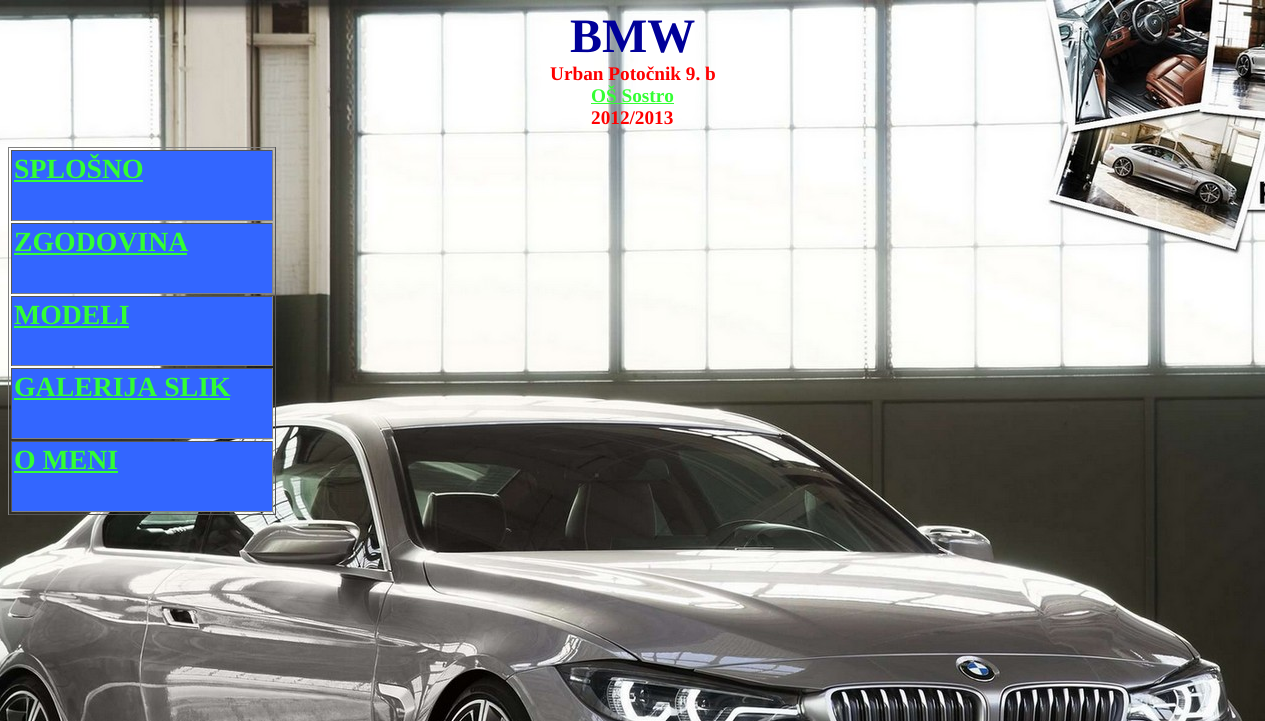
#include <cairo/cairo.h>
#include <math.h>
#include <stddef.h>

typedef struct { double x, y; const char *s; } line_t;
typedef struct { double x, y, w, h; unsigned color; } box_t;
static cairo_t *cr;

static void rgb(unsigned color)
{
	cairo_set_source_rgb(cr, (color >> 16) / 255.0, (color >> 8 & 255) / 255.0, (color & 255) / 255.0);
}

static void image(const char *path, double x, double y, double w, double h)
{
	cairo_surface_t *image = cairo_image_surface_create_from_png(path);
	cairo_save(cr);
	cairo_set_source_surface(cr, image, x, y);
	cairo_rectangle(cr, x, y, w, h);
	cairo_fill(cr);
	cairo_restore(cr);
	cairo_surface_destroy(image);
}

int main(void) {
	cairo_surface_t *surface = cairo_image_surface_create(CAIRO_FORMAT_RGB24, 1265, 721);
	cr = cairo_create(surface);
	cairo_font_options_t *options = cairo_font_options_create();
	cairo_font_options_set_hint_metrics(options, CAIRO_HINT_METRICS_OFF);
	cairo_font_options_set_hint_style(options, CAIRO_HINT_STYLE_NONE);
	cairo_set_font_options(cr, options);
	cairo_set_miter_limit(cr, 4);
	rgb(0xffffff);
	cairo_paint(cr);
	image("img/1.png", 0, 0, 1265, 721);
	{
		static const box_t items[] = {
			{591, 103, 83, 1, 0x33ff33},
			{8, 147, 268, 1, 0x808080},
			{275, 147, 1, 368, 0x555555},
			{8, 514, 268, 1, 0x555555},
			{8, 147, 1, 368, 0x808080},
			{12, 151, 260, 69, 0x3366ff},
			{11, 150, 262, 1, 0x555555},
			{272, 150, 1, 71, 0x808080},
			{11, 220, 262, 1, 0x808080},
			{11, 150, 1, 71, 0x555555},
			{14, 180, 129, 2, 0x33ff33},
			{12, 224, 260, 69, 0x3366ff},
			{11, 223, 262, 1, 0x555555},
			{272, 223, 1, 71, 0x808080},
			{11, 293, 262, 1, 0x808080},
			{11, 223, 1, 71, 0x555555},
			{14, 253, 173, 2, 0x33ff33},
			{12, 297, 260, 68, 0x3366ff},
			{11, 296, 262, 1, 0x555555},
			{272, 296, 1, 70, 0x808080},
			{11, 365, 262, 1, 0x808080},
			{11, 296, 1, 70, 0x555555},
			{14, 326, 115, 2, 0x33ff33},
			{12, 369, 260, 69, 0x3366ff},
			{11, 368, 262, 1, 0x555555},
			{272, 368, 1, 71, 0x808080},
			{11, 438, 262, 1, 0x808080},
			{11, 368, 1, 71, 0x555555},
			{14, 398, 216, 2, 0x33ff33},
			{12, 442, 260, 69, 0x3366ff},
			{11, 441, 262, 1, 0x555555},
			{272, 441, 1, 71, 0x808080},
			{11, 511, 262, 1, 0x808080},
			{11, 441, 1, 71, 0x555555},
			{14, 471, 104, 2, 0x33ff33},
		};
		for (size_t i = 0; i < sizeof items / sizeof *items; i++) {
			rgb(items[i].color);
			cairo_rectangle(cr, items[i].x, items[i].y, items[i].w, items[i].h);
			cairo_fill(cr);
		}
	}
	cairo_select_font_face(cr, "Liberation Serif", CAIRO_FONT_SLANT_NORMAL, CAIRO_FONT_WEIGHT_BOLD);
	cairo_set_font_size(cr, 48);
	rgb(0x000099);
	cairo_move_to(cr, 570, 52);
	cairo_show_text(cr, "BMW");
	cairo_set_font_size(cr, 19.25);
	rgb(0xff0000);
	cairo_move_to(cr, 550, 80);
	cairo_show_text(cr, "Urban Potočnik 9. b");
	rgb(0x33ff33);
	cairo_move_to(cr, 591, 102);
	cairo_show_text(cr, "OŠ Sostro");
	rgb(0xff0000);
	cairo_move_to(cr, 591, 124);
	cairo_show_text(cr, "2012/2013");
	cairo_set_font_size(cr, 27.75);
	rgb(0x33ff33);
	{
		static const line_t items[] = {
			{14, 178, "SPLOŠNO"},
			{14, 251, "ZGODOVINA"},
			{14, 324, "MODELI"},
			{14, 396, "GALERIJA SLIK"},
			{14, 469, "O MENI"},
		};
		for (size_t i = 0; i < sizeof items / sizeof *items; i++) {
			cairo_move_to(cr, items[i].x, items[i].y);
			cairo_show_text(cr, items[i].s);
		}
	}
	cairo_surface_write_to_png(surface, "page.png");
	cairo_font_options_destroy(options);
	cairo_destroy(cr);
	cairo_surface_destroy(surface);
	return 0;
}
